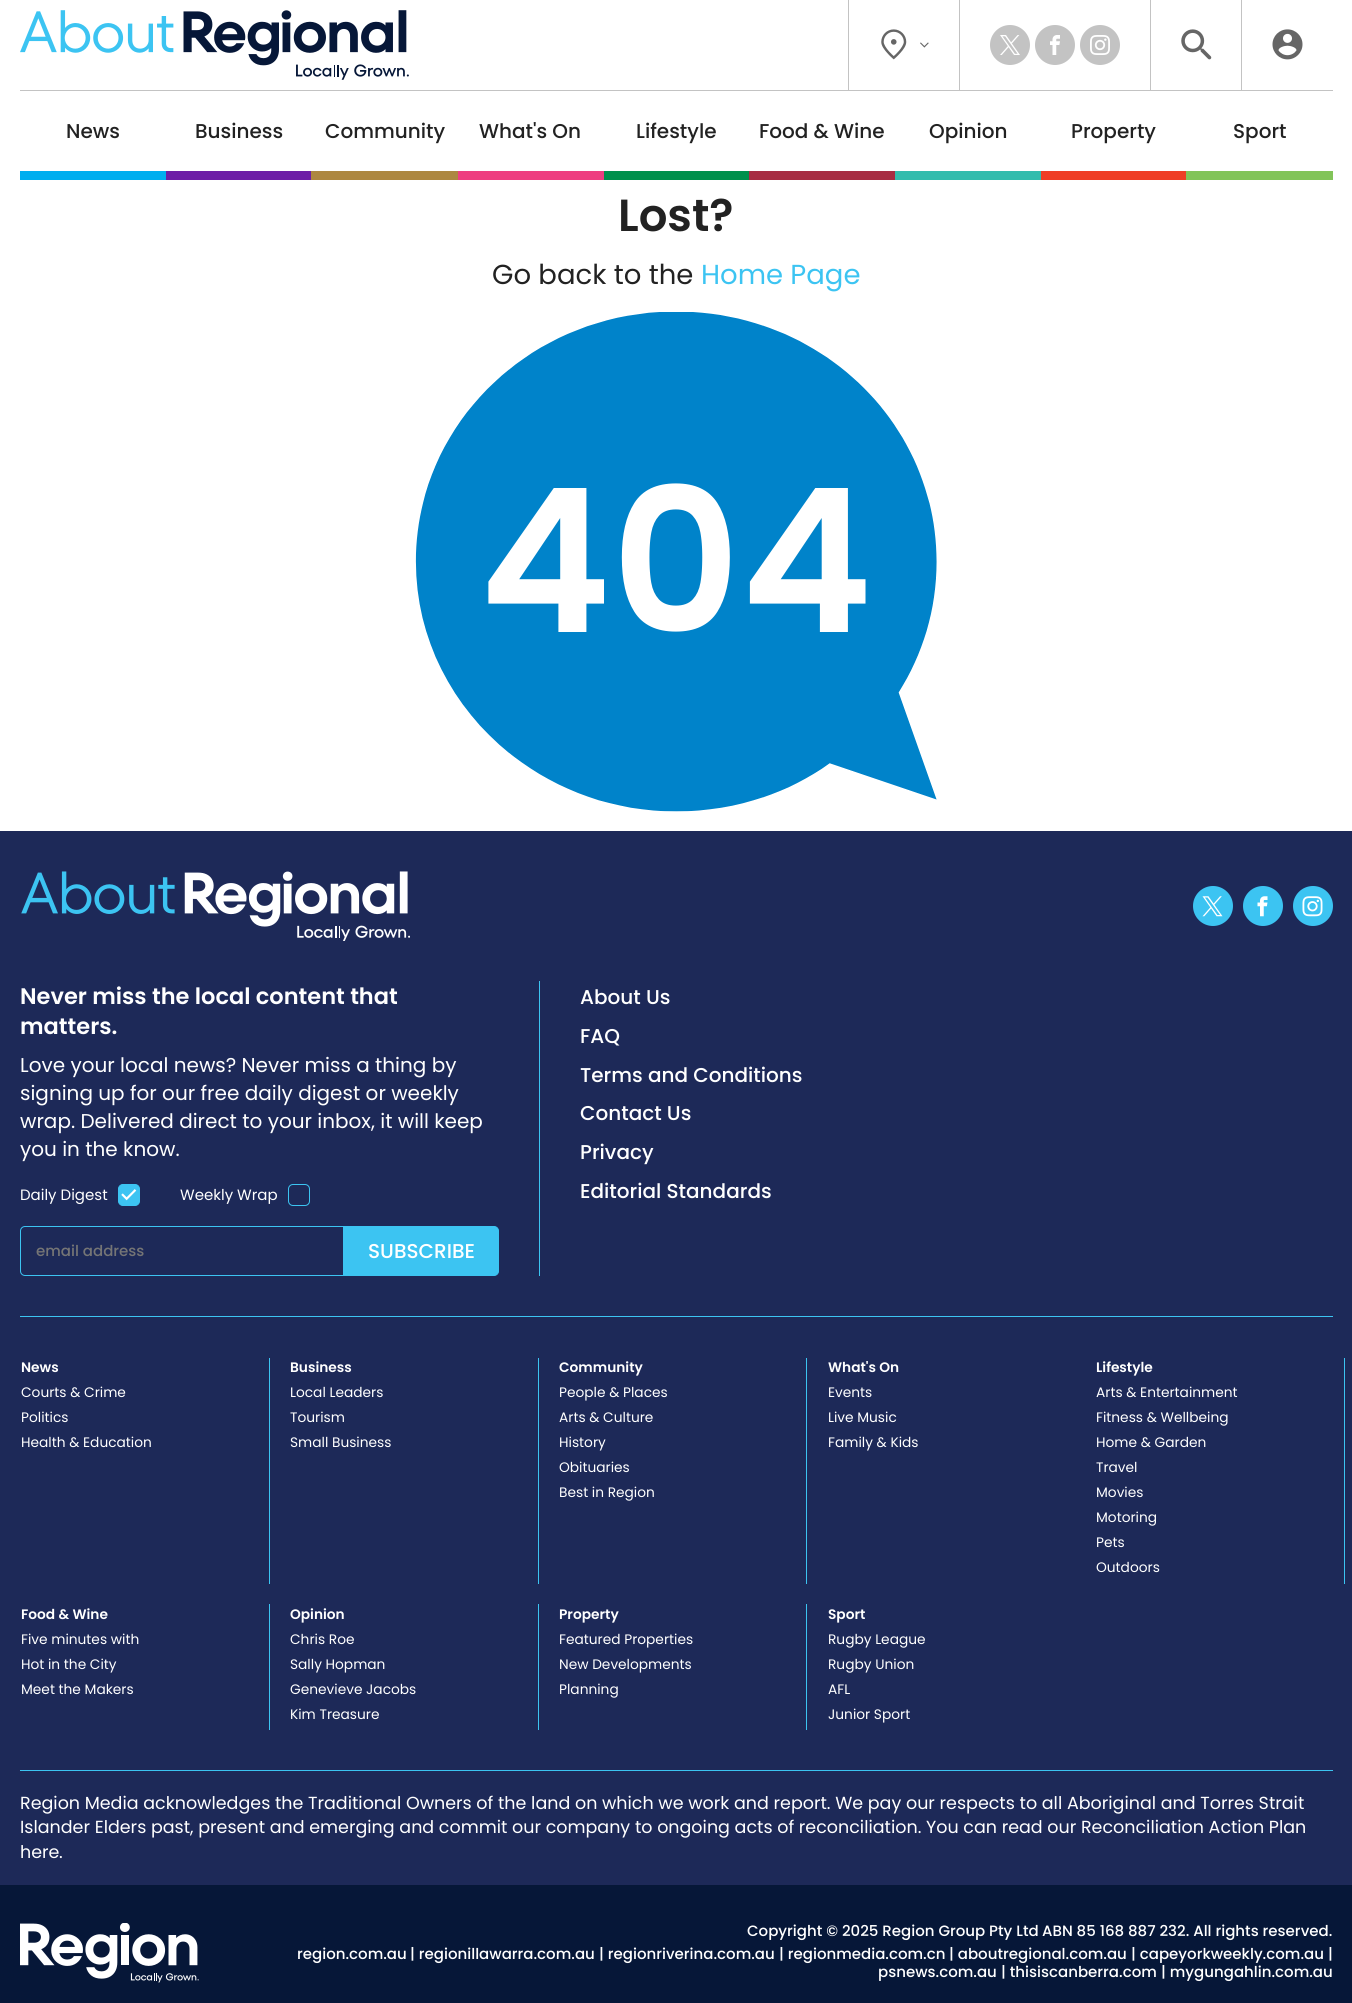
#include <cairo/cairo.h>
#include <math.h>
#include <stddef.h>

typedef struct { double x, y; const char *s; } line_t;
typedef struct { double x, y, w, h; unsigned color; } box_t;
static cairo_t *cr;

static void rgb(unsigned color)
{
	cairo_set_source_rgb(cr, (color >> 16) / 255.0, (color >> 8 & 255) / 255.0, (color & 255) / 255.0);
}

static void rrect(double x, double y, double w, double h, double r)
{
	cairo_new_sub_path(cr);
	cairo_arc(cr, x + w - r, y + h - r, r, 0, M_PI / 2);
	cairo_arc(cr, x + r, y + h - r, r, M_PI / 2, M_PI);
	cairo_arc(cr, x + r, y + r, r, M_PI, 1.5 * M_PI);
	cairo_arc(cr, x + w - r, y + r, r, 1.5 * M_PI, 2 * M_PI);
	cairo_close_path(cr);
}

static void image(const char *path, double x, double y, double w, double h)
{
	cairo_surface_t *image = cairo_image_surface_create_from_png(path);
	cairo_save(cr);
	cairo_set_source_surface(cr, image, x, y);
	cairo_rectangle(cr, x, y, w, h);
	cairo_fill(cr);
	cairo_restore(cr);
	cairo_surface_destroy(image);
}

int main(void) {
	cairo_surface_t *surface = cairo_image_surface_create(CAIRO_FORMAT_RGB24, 1352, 2003);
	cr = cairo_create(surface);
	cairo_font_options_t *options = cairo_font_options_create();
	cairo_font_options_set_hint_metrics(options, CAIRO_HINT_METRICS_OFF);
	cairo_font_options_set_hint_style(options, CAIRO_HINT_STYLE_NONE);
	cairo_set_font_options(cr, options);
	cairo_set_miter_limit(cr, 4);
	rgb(0xffffff);
	cairo_paint(cr);
	image("img/1.png", 20, 10, 389, 70);
	rgb(0xc3c3c3);
	cairo_rectangle(cr, 848, 0, 1, 90);
	cairo_fill(cr);
	image("img/2.png", 881, 29, 26, 31);
	image("img/3.png", 920, 42, 9, 6);
	cairo_rectangle(cr, 959, 0, 1, 90);
	cairo_fill(cr);
	cairo_arc(cr, 1010, 45, 20, 0, 2 * M_PI);
	cairo_fill(cr);
	image("img/4.png", 1000, 35, 20, 20);
	cairo_arc(cr, 1055, 45, 20, 0, 2 * M_PI);
	cairo_fill(cr);
	image("img/5.png", 1050, 35, 10, 20);
	cairo_arc(cr, 1100, 45, 20, 0, 2 * M_PI);
	cairo_fill(cr);
	image("img/6.png", 1090, 35, 20, 20);
	cairo_rectangle(cr, 1150, 0, 1, 90);
	cairo_fill(cr);
	image("img/7.png", 1181, 29, 31, 31);
	cairo_rectangle(cr, 1241, 0, 1, 90);
	cairo_fill(cr);
	image("img/8.png", 1272, 29, 31, 31);
	{
		static const box_t items[] = {
			{20, 90, 1313, 1, 0xc3c3c3},
			{20, 171, 146, 9, 0x00aeef},
			{166, 171, 145, 9, 0x6d1da6},
			{311, 171, 147, 9, 0xad8740},
			{458, 171, 146, 9, 0xee3e80},
			{604, 171, 145, 9, 0x00904c},
			{749, 171, 146, 9, 0xa72c42},
			{895, 171, 146, 9, 0x32bcad},
			{1041, 171, 145, 9, 0xef3e25},
			{1186, 171, 147, 9, 0x82c459},
		};
		for (size_t i = 0; i < sizeof items / sizeof *items; i++) {
			rgb(items[i].color);
			cairo_rectangle(cr, items[i].x, items[i].y, items[i].w, items[i].h);
			cairo_fill(cr);
		}
	}
	image("img/9.png", 415, 312, 522, 500);
	rgb(0x1d2958);
	cairo_rectangle(cr, 0, 831, 1352, 1054);
	cairo_fill(cr);
	image("img/10.png", 21, 871, 389, 70);
	rgb(0x3cc4f2);
	cairo_arc(cr, 1213, 906, 20, 0, 2 * M_PI);
	cairo_fill(cr);
	image("img/11.png", 1202, 896, 21, 21);
	cairo_arc(cr, 1263, 906, 20, 0, 2 * M_PI);
	cairo_fill(cr);
	image("img/12.png", 1257, 896, 11, 21);
	cairo_arc(cr, 1313, 906, 20, 0, 2 * M_PI);
	cairo_fill(cr);
	image("img/13.png", 1302, 896, 21, 21);
	cairo_rectangle(cr, 20, 1316, 1313, 1);
	cairo_fill(cr);
	rrect(118.5, 1184.5, 21, 21, 4.5);
	cairo_fill_preserve(cr);
	cairo_set_line_width(cr, 1);
	cairo_stroke(cr);
	image("img/14.png", 121, 1189, 16, 12);
	rrect(288.5, 1184.5, 21, 21, 4.5);
	cairo_stroke(cr);
	cairo_new_path(cr);
	cairo_move_to(cr, 25, 1226.5);
	cairo_line_to(cr, 343.5, 1226.5);
	cairo_line_to(cr, 343.5, 1275.5);
	cairo_line_to(cr, 25, 1275.5);
	cairo_curve_to(cr, 22.5, 1275.5, 20.5, 1273.5, 20.5, 1271);
	cairo_line_to(cr, 20.5, 1231);
	cairo_curve_to(cr, 20.5, 1228.5, 22.5, 1226.5, 25, 1226.5);
	cairo_close_path(cr);
	cairo_stroke(cr);
	cairo_new_path(cr);
	cairo_move_to(cr, 344.5, 1226.5);
	cairo_line_to(cr, 494, 1226.5);
	cairo_curve_to(cr, 496.5, 1226.5, 498.5, 1228.5, 498.5, 1231);
	cairo_line_to(cr, 498.5, 1271);
	cairo_curve_to(cr, 498.5, 1273.5, 496.5, 1275.5, 494, 1275.5);
	cairo_line_to(cr, 344.5, 1275.5);
	cairo_close_path(cr);
	cairo_fill_preserve(cr);
	cairo_stroke(cr);
	{
		static const box_t items[] = {
			{539, 981, 1, 295, 0x3cc4f2},
			{269, 1358, 1, 226, 0x3cc4f2},
			{538, 1358, 1, 226, 0x3cc4f2},
			{806, 1358, 1, 226, 0x3cc4f2},
			{1344, 1358, 1, 226, 0x3cc4f2},
			{269, 1604, 1, 126, 0x3cc4f2},
			{538, 1604, 1, 126, 0x3cc4f2},
			{806, 1604, 1, 126, 0x3cc4f2},
			{20, 1770, 1313, 1, 0x3cc4f2},
			{0, 1885, 1352, 118, 0x061738},
		};
		for (size_t i = 0; i < sizeof items / sizeof *items; i++) {
			rgb(items[i].color);
			cairo_rectangle(cr, items[i].x, items[i].y, items[i].w, items[i].h);
			cairo_fill(cr);
		}
	}
	image("img/15.png", 20, 1923, 179, 60);
	cairo_select_font_face(cr, "Poppins Medium", CAIRO_FONT_SLANT_NORMAL, CAIRO_FONT_WEIGHT_NORMAL);
	cairo_set_font_size(cr, 20);
	rgb(0x222222);
	{
		static const line_t items[] = {
			{66, 138, "News"},
			{195, 138, "Business"},
			{325, 138, "Community"},
			{479, 138, "What's On"},
			{636, 138, "Lifestyle"},
			{759, 138, "Food & Wine"},
			{929, 138, "Opinion"},
			{1071, 138, "Property"},
			{1233, 138, "Sport"},
		};
		for (size_t i = 0; i < sizeof items / sizeof *items; i++) {
			cairo_move_to(cr, items[i].x, items[i].y);
			cairo_show_text(cr, items[i].s);
		}
	}
	cairo_select_font_face(cr, "Poppins SemiBold", CAIRO_FONT_SLANT_NORMAL, CAIRO_FONT_WEIGHT_NORMAL);
	cairo_set_font_size(cr, 45);
	cairo_move_to(cr, 618, 231);
	cairo_show_text(cr, "Lost?");
	cairo_select_font_face(cr, "Poppins", CAIRO_FONT_SLANT_NORMAL, CAIRO_FONT_WEIGHT_NORMAL);
	cairo_set_font_size(cr, 27.5);
	cairo_move_to(cr, 492, 284);
	cairo_show_text(cr, "Go back to the");
	rgb(0x3cc4f2);
	cairo_move_to(cr, 701, 284);
	cairo_show_text(cr, "Home Page");
	cairo_select_font_face(cr, "Poppins SemiBold", CAIRO_FONT_SLANT_NORMAL, CAIRO_FONT_WEIGHT_NORMAL);
	cairo_set_font_size(cr, 200);
	rgb(0xffffff);
	cairo_move_to(cr, 479, 632);
	cairo_show_text(cr, "404");
	cairo_set_font_size(cr, 22.5);
	cairo_move_to(cr, 20, 1004);
	cairo_show_text(cr, "Never miss the local content that");
	cairo_move_to(cr, 20, 1034);
	cairo_show_text(cr, "matters.");
	cairo_select_font_face(cr, "Poppins", CAIRO_FONT_SLANT_NORMAL, CAIRO_FONT_WEIGHT_NORMAL);
	cairo_set_font_size(cr, 20);
	{
		static const line_t items[] = {
			{20, 1072, "Love your local news? Never miss a thing by"},
			{20, 1100, "signing up for our free daily digest or weekly"},
			{20, 1128, "wrap. Delivered direct to your inbox, it will keep"},
			{20, 1156, "you in the know."},
		};
		for (size_t i = 0; i < sizeof items / sizeof *items; i++) {
			cairo_move_to(cr, items[i].x, items[i].y);
			cairo_show_text(cr, items[i].s);
		}
	}
	cairo_set_font_size(cr, 15);
	cairo_move_to(cr, 20, 1200);
	cairo_show_text(cr, "Daily Digest");
	cairo_move_to(cr, 180, 1200);
	cairo_show_text(cr, "Weekly Wrap");
	cairo_select_font_face(cr, "Poppins Medium", CAIRO_FONT_SLANT_NORMAL, CAIRO_FONT_WEIGHT_NORMAL);
	rgb(0x757575);
	cairo_move_to(cr, 36, 1256);
	cairo_show_text(cr, "email address");
	cairo_set_font_size(cr, 20);
	rgb(0xffffff);
	{
		static const line_t items[] = {
			{368, 1258, "SUBSCRIBE"},
			{580, 1004, "About Us"},
			{580, 1043, "FAQ"},
			{580, 1082, "Terms and Conditions"},
			{580, 1120, "Contact Us"},
			{580, 1159, "Privacy"},
			{580, 1198, "Editorial Standards"},
		};
		for (size_t i = 0; i < sizeof items / sizeof *items; i++) {
			cairo_move_to(cr, items[i].x, items[i].y);
			cairo_show_text(cr, items[i].s);
		}
	}
	cairo_select_font_face(cr, "Poppins SemiBold", CAIRO_FONT_SLANT_NORMAL, CAIRO_FONT_WEIGHT_NORMAL);
	cairo_set_font_size(cr, 13.75);
	cairo_move_to(cr, 21, 1372);
	cairo_show_text(cr, "News");
	cairo_select_font_face(cr, "Poppins", CAIRO_FONT_SLANT_NORMAL, CAIRO_FONT_WEIGHT_NORMAL);
	{
		static const line_t items[] = {
			{21, 1397, "Courts & Crime"},
			{21, 1422, "Politics"},
			{21, 1447, "Health & Education"},
		};
		for (size_t i = 0; i < sizeof items / sizeof *items; i++) {
			cairo_move_to(cr, items[i].x, items[i].y);
			cairo_show_text(cr, items[i].s);
		}
	}
	cairo_select_font_face(cr, "Poppins SemiBold", CAIRO_FONT_SLANT_NORMAL, CAIRO_FONT_WEIGHT_NORMAL);
	cairo_move_to(cr, 290, 1372);
	cairo_show_text(cr, "Business");
	cairo_select_font_face(cr, "Poppins", CAIRO_FONT_SLANT_NORMAL, CAIRO_FONT_WEIGHT_NORMAL);
	{
		static const line_t items[] = {
			{290, 1397, "Local Leaders"},
			{290, 1422, "Tourism"},
			{290, 1447, "Small Business"},
		};
		for (size_t i = 0; i < sizeof items / sizeof *items; i++) {
			cairo_move_to(cr, items[i].x, items[i].y);
			cairo_show_text(cr, items[i].s);
		}
	}
	cairo_select_font_face(cr, "Poppins SemiBold", CAIRO_FONT_SLANT_NORMAL, CAIRO_FONT_WEIGHT_NORMAL);
	cairo_move_to(cr, 559, 1372);
	cairo_show_text(cr, "Community");
	cairo_select_font_face(cr, "Poppins", CAIRO_FONT_SLANT_NORMAL, CAIRO_FONT_WEIGHT_NORMAL);
	{
		static const line_t items[] = {
			{559, 1397, "People & Places"},
			{559, 1422, "Arts & Culture"},
			{559, 1447, "History"},
			{559, 1472, "Obituaries"},
			{559, 1497, "Best in Region"},
		};
		for (size_t i = 0; i < sizeof items / sizeof *items; i++) {
			cairo_move_to(cr, items[i].x, items[i].y);
			cairo_show_text(cr, items[i].s);
		}
	}
	cairo_select_font_face(cr, "Poppins SemiBold", CAIRO_FONT_SLANT_NORMAL, CAIRO_FONT_WEIGHT_NORMAL);
	cairo_move_to(cr, 828, 1372);
	cairo_show_text(cr, "What's On");
	cairo_select_font_face(cr, "Poppins", CAIRO_FONT_SLANT_NORMAL, CAIRO_FONT_WEIGHT_NORMAL);
	{
		static const line_t items[] = {
			{828, 1397, "Events"},
			{828, 1422, "Live Music"},
			{828, 1447, "Family & Kids"},
		};
		for (size_t i = 0; i < sizeof items / sizeof *items; i++) {
			cairo_move_to(cr, items[i].x, items[i].y);
			cairo_show_text(cr, items[i].s);
		}
	}
	cairo_select_font_face(cr, "Poppins SemiBold", CAIRO_FONT_SLANT_NORMAL, CAIRO_FONT_WEIGHT_NORMAL);
	cairo_move_to(cr, 1096, 1372);
	cairo_show_text(cr, "Lifestyle");
	cairo_select_font_face(cr, "Poppins", CAIRO_FONT_SLANT_NORMAL, CAIRO_FONT_WEIGHT_NORMAL);
	{
		static const line_t items[] = {
			{1096, 1397, "Arts & Entertainment"},
			{1096, 1422, "Fitness & Wellbeing"},
			{1096, 1447, "Home & Garden"},
			{1096, 1472, "Travel"},
			{1096, 1497, "Movies"},
			{1096, 1522, "Motoring"},
			{1096, 1547, "Pets"},
			{1096, 1572, "Outdoors"},
		};
		for (size_t i = 0; i < sizeof items / sizeof *items; i++) {
			cairo_move_to(cr, items[i].x, items[i].y);
			cairo_show_text(cr, items[i].s);
		}
	}
	cairo_select_font_face(cr, "Poppins SemiBold", CAIRO_FONT_SLANT_NORMAL, CAIRO_FONT_WEIGHT_NORMAL);
	cairo_move_to(cr, 21, 1619);
	cairo_show_text(cr, "Food & Wine");
	cairo_select_font_face(cr, "Poppins", CAIRO_FONT_SLANT_NORMAL, CAIRO_FONT_WEIGHT_NORMAL);
	{
		static const line_t items[] = {
			{21, 1644, "Five minutes with"},
			{21, 1669, "Hot in the City"},
			{21, 1694, "Meet the Makers"},
		};
		for (size_t i = 0; i < sizeof items / sizeof *items; i++) {
			cairo_move_to(cr, items[i].x, items[i].y);
			cairo_show_text(cr, items[i].s);
		}
	}
	cairo_select_font_face(cr, "Poppins SemiBold", CAIRO_FONT_SLANT_NORMAL, CAIRO_FONT_WEIGHT_NORMAL);
	cairo_move_to(cr, 290, 1619);
	cairo_show_text(cr, "Opinion");
	cairo_select_font_face(cr, "Poppins", CAIRO_FONT_SLANT_NORMAL, CAIRO_FONT_WEIGHT_NORMAL);
	{
		static const line_t items[] = {
			{290, 1644, "Chris Roe"},
			{290, 1669, "Sally Hopman"},
			{290, 1694, "Genevieve Jacobs"},
			{290, 1719, "Kim Treasure"},
		};
		for (size_t i = 0; i < sizeof items / sizeof *items; i++) {
			cairo_move_to(cr, items[i].x, items[i].y);
			cairo_show_text(cr, items[i].s);
		}
	}
	cairo_select_font_face(cr, "Poppins SemiBold", CAIRO_FONT_SLANT_NORMAL, CAIRO_FONT_WEIGHT_NORMAL);
	cairo_move_to(cr, 559, 1619);
	cairo_show_text(cr, "Property");
	cairo_select_font_face(cr, "Poppins", CAIRO_FONT_SLANT_NORMAL, CAIRO_FONT_WEIGHT_NORMAL);
	{
		static const line_t items[] = {
			{559, 1644, "Featured Properties"},
			{559, 1669, "New Developments"},
			{559, 1694, "Planning"},
		};
		for (size_t i = 0; i < sizeof items / sizeof *items; i++) {
			cairo_move_to(cr, items[i].x, items[i].y);
			cairo_show_text(cr, items[i].s);
		}
	}
	cairo_select_font_face(cr, "Poppins SemiBold", CAIRO_FONT_SLANT_NORMAL, CAIRO_FONT_WEIGHT_NORMAL);
	cairo_move_to(cr, 828, 1619);
	cairo_show_text(cr, "Sport");
	cairo_select_font_face(cr, "Poppins", CAIRO_FONT_SLANT_NORMAL, CAIRO_FONT_WEIGHT_NORMAL);
	{
		static const line_t items[] = {
			{828, 1644, "Rugby League"},
			{828, 1669, "Rugby Union"},
			{828, 1694, "AFL"},
			{828, 1719, "Junior Sport"},
		};
		for (size_t i = 0; i < sizeof items / sizeof *items; i++) {
			cairo_move_to(cr, items[i].x, items[i].y);
			cairo_show_text(cr, items[i].s);
		}
	}
	cairo_set_font_size(cr, 17.5);
	{
		static const line_t items[] = {
			{20, 1809, "Region Media acknowledges the Traditional Owners of the land on which we work and report. We pay our respects to all Aboriginal and Torres Strait"},
			{20, 1833, "Islander Elders past, present and emerging and commit our company to ongoing acts of reconciliation. You can read our Reconciliation Action Plan"},
			{20, 1858, "here"},
			{59, 1858, "."},
		};
		for (size_t i = 0; i < sizeof items / sizeof *items; i++) {
			cairo_move_to(cr, items[i].x, items[i].y);
			cairo_show_text(cr, items[i].s);
		}
	}
	cairo_select_font_face(cr, "Poppins Medium", CAIRO_FONT_SLANT_NORMAL, CAIRO_FONT_WEIGHT_NORMAL);
	cairo_set_font_size(cr, 15);
	{
		static const line_t items[] = {
			{747, 1936, "Copyright © 2025 Region Group Pty Ltd"},
			{1042, 1936, "ABN 85 168 887 232. All rights reserved."},
			{297, 1959, "region.com.au"},
			{410, 1959, "| regionillawarra.com.au"},
			{599, 1959, "| regionriverina.com.au"},
			{779, 1959, "| regionmedia.com.cn"},
			{949, 1959, "| aboutregional.com.au"},
			{1131, 1959, "| capeyorkweekly.com.au"},
			{1328, 1959, "|"},
			{878, 1977, "psnews.com.au"},
			{1001, 1977, "| thisiscanberra.com"},
			{1161, 1977, "| mygungahlin.com.au"},
		};
		for (size_t i = 0; i < sizeof items / sizeof *items; i++) {
			cairo_move_to(cr, items[i].x, items[i].y);
			cairo_show_text(cr, items[i].s);
		}
	}
	cairo_surface_write_to_png(surface, "page.png");
	cairo_font_options_destroy(options);
	cairo_destroy(cr);
	cairo_surface_destroy(surface);
	return 0;
}
